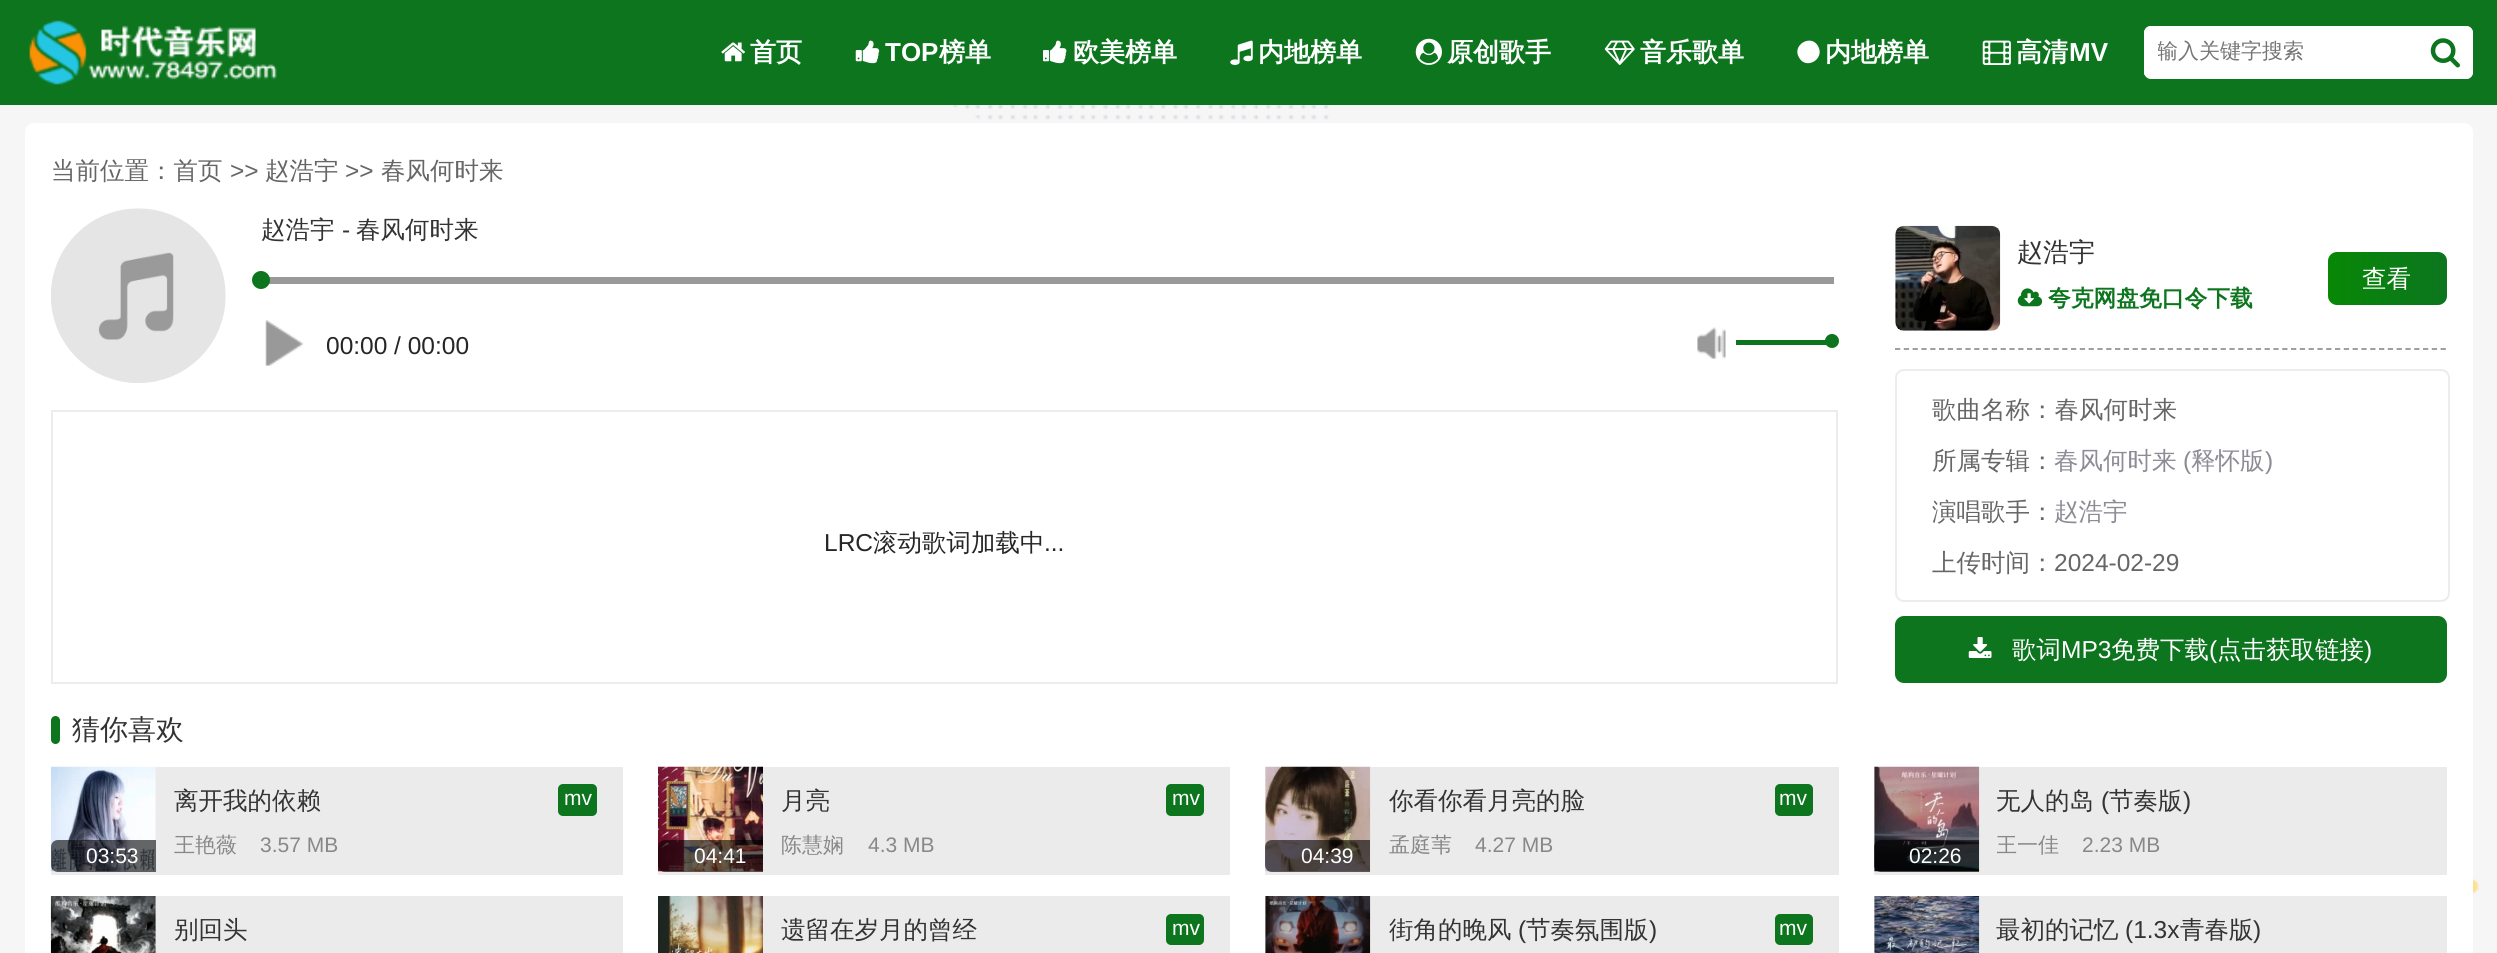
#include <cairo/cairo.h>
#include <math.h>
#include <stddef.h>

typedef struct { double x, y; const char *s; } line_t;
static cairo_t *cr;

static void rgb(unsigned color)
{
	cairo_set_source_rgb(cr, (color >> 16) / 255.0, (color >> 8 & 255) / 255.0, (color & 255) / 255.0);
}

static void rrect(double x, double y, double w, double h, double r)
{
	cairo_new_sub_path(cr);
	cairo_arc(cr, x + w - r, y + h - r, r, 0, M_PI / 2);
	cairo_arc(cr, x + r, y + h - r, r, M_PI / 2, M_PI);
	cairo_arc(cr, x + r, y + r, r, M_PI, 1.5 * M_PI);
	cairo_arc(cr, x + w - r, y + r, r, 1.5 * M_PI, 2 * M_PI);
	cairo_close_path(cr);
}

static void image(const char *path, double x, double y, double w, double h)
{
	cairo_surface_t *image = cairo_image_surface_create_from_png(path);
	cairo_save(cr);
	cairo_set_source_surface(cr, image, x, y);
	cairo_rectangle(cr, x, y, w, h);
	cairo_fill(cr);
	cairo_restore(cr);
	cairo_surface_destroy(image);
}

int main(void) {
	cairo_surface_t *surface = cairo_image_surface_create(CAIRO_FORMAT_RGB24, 2497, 953);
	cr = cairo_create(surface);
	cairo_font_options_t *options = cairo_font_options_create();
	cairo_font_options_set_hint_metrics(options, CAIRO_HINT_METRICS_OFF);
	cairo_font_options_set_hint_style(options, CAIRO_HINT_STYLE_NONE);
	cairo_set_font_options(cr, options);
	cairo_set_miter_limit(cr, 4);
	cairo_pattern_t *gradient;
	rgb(0xf6f6f6);
	cairo_paint(cr);
	image("img/1.png", 952, 105, 1528, 790);
	rgb(0x0c751e);
	cairo_rectangle(cr, 0, 0, 2497, 105);
	cairo_fill(cr);
	image("img/2.png", 29, 20, 248, 65);
	image("img/3.png", 721, 42, 24, 20);
	image("img/4.png", 855, 40, 25, 24);
	image("img/5.png", 1043, 40, 24, 24);
	image("img/6.png", 1230, 40, 23, 25);
	image("img/7.png", 1415, 38, 27, 27);
	image("img/8.png", 1604, 40, 31, 25);
	rgb(0xffffff);
	cairo_new_path(cr);
	cairo_move_to(cr, 1818, 46);
	cairo_curve_to(cr, 1825.5, 59, 1806, 70.5, 1799, 57.5);
	cairo_curve_to(cr, 1791.5, 45, 1811, 33.5, 1818, 46);
	cairo_close_path(cr);
	cairo_fill(cr);
	image("img/9.png", 1982, 40, 29, 25);
	rrect(2144, 26, 329, 53, 7);
	cairo_fill(cr);
	cairo_save(cr);
	rrect(2144, 26, 329, 53, 7);
	cairo_clip(cr);
	cairo_new_path(cr);
	cairo_move_to(cr, 2151, 26);
	cairo_line_to(cr, 2420, 26);
	cairo_line_to(cr, 2420, 75);
	cairo_line_to(cr, 2144, 75);
	cairo_line_to(cr, 2144, 33);
	cairo_curve_to(cr, 2144, 29, 2147, 26, 2151, 26);
	cairo_close_path(cr);
	cairo_fill(cr);
	cairo_restore(cr);
	cairo_new_path(cr);
	cairo_move_to(cr, 2420, 26);
	cairo_line_to(cr, 2466, 26);
	cairo_curve_to(cr, 2470, 26, 2473, 29, 2473, 33);
	cairo_line_to(cr, 2473, 72);
	cairo_curve_to(cr, 2473, 76, 2470, 79, 2466, 79);
	cairo_line_to(cr, 2420, 79);
	cairo_close_path(cr);
	cairo_fill(cr);
	image("img/10.png", 2430, 38, 30, 30);
	rrect(25, 123, 2448, 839, 9);
	cairo_fill(cr);
	image("img/11.png", 51, 208, 175, 175);
	rgb(0x999999);
	cairo_rectangle(cr, 261, 277, 1573, 7);
	cairo_fill(cr);
	rgb(0x0c751e);
	cairo_arc(cr, 261, 280, 9, 0, 2 * M_PI);
	cairo_fill(cr);
	image("img/12.png", 265, 320, 39, 46);
	image("img/13.png", 1697, 327, 29, 32);
	cairo_rectangle(cr, 1736, 340, 98, 5);
	cairo_fill(cr);
	cairo_arc(cr, 1832, 341, 7, 0, 2 * M_PI);
	cairo_fill(cr);
	cairo_rectangle(cr, 52, 411, 1785, 272);
	rgb(0xececec);
	cairo_stroke(cr);
	cairo_new_path(cr);
	cairo_move_to(cr, 1895, 349);
	cairo_line_to(cr, 2446.5, 349);
	rgb(0x969595);
	cairo_set_line_width(cr, 1.8);
	cairo_set_dash(cr, (double[]){5.25, 3.55}, 2, 0);
	cairo_stroke(cr);
	image("img/14.png", 1895, 225, 106, 106);
	image("img/15.png", 2017, 288, 26, 19);
	gradient = cairo_pattern_create_linear(2328, 278, 2447, 278);
	cairo_pattern_add_color_stop_rgba(gradient, 0, 0.031, 0.533, 0.024, 1);
	cairo_pattern_add_color_stop_rgba(gradient, 1, 0.047, 0.459, 0.118, 1);
	cairo_set_source(cr, gradient);
	cairo_pattern_destroy(gradient);
	rrect(2328, 252, 119, 53, 9);
	cairo_fill(cr);
	rrect(1896, 370, 553, 231, 8);
	rgb(0xececec);
	cairo_set_line_width(cr, 2);
	cairo_set_dash(cr, NULL, 0, 0);
	cairo_stroke(cr);
	rgb(0x0c751e);
	rrect(1895, 616, 552, 67, 9);
	cairo_fill(cr);
	image("img/16.png", 1968, 637, 24, 21);
	rrect(51, 716, 9, 28, 4.5);
	cairo_fill(cr);
	rgb(0xecebeb);
	cairo_rectangle(cr, 51, 767, 572, 108);
	cairo_fill(cr);
	image("img/17.png", 50, 766, 106, 106);
	cairo_set_source_rgba(cr, 0, 0, 0, 0.6);
	cairo_new_path(cr);
	cairo_move_to(cr, 58, 840);
	cairo_line_to(cr, 156, 840);
	cairo_line_to(cr, 156, 872);
	cairo_line_to(cr, 58, 872);
	cairo_curve_to(cr, 54, 872, 51, 869, 51, 865);
	cairo_line_to(cr, 51, 847);
	cairo_curve_to(cr, 51, 843, 54, 840, 58, 840);
	cairo_close_path(cr);
	cairo_fill(cr);
	rgb(0x0c751e);
	rrect(558, 784, 39, 32, 5);
	cairo_fill(cr);
	rgb(0xecebeb);
	cairo_rectangle(cr, 658, 767, 572, 108);
	cairo_fill(cr);
	image("img/18.png", 658, 766, 105, 106);
	cairo_set_source_rgba(cr, 0, 0, 0, 0.6);
	cairo_new_path(cr);
	cairo_move_to(cr, 665, 840);
	cairo_line_to(cr, 763, 840);
	cairo_line_to(cr, 763, 872);
	cairo_line_to(cr, 665, 872);
	cairo_curve_to(cr, 661, 872, 658, 869, 658, 865);
	cairo_line_to(cr, 658, 847);
	cairo_curve_to(cr, 658, 843, 661, 840, 665, 840);
	cairo_close_path(cr);
	cairo_fill(cr);
	rgb(0x0c751e);
	rrect(1166, 784, 38, 32, 5);
	cairo_fill(cr);
	rgb(0xecebeb);
	cairo_rectangle(cr, 1265, 767, 574, 108);
	cairo_fill(cr);
	image("img/19.png", 1265, 766, 106, 106);
	cairo_set_source_rgba(cr, 0, 0, 0, 0.6);
	cairo_new_path(cr);
	cairo_move_to(cr, 1272, 840);
	cairo_line_to(cr, 1370, 840);
	cairo_line_to(cr, 1370, 872);
	cairo_line_to(cr, 1272, 872);
	cairo_curve_to(cr, 1268, 872, 1265, 869, 1265, 865);
	cairo_line_to(cr, 1265, 847);
	cairo_curve_to(cr, 1265, 843, 1268, 840, 1272, 840);
	cairo_close_path(cr);
	cairo_fill(cr);
	rgb(0x0c751e);
	rrect(1775, 784, 38, 32, 5);
	cairo_fill(cr);
	rgb(0xecebeb);
	cairo_rectangle(cr, 1874, 767, 573, 108);
	cairo_fill(cr);
	image("img/20.png", 1874, 766, 106, 106);
	cairo_set_source_rgba(cr, 0, 0, 0, 0.6);
	cairo_new_path(cr);
	cairo_move_to(cr, 1881, 840);
	cairo_line_to(cr, 1979, 840);
	cairo_line_to(cr, 1979, 872);
	cairo_line_to(cr, 1881, 872);
	cairo_curve_to(cr, 1877, 872, 1874, 869, 1874, 865);
	cairo_line_to(cr, 1874, 847);
	cairo_curve_to(cr, 1874, 843, 1877, 840, 1881, 840);
	cairo_close_path(cr);
	cairo_fill(cr);
	rgb(0xecebeb);
	cairo_rectangle(cr, 155, 896, 468, 57);
	cairo_fill(cr);
	image("img/21.png", 50, 896, 106, 57);
	cairo_rectangle(cr, 763, 896, 467, 57);
	cairo_fill(cr);
	image("img/22.png", 658, 896, 105, 57);
	rgb(0x0c751e);
	rrect(1166, 914, 38, 31, 5);
	cairo_fill(cr);
	rgb(0xecebeb);
	cairo_rectangle(cr, 1265, 896, 574, 57);
	cairo_fill(cr);
	image("img/23.png", 1265, 896, 106, 57);
	rgb(0x0c751e);
	rrect(1775, 914, 38, 31, 5);
	cairo_fill(cr);
	rgb(0xecebeb);
	cairo_rectangle(cr, 1874, 896, 573, 57);
	cairo_fill(cr);
	image("img/24.png", 1874, 896, 106, 57);
	cairo_select_font_face(cr, "WenQuanYi Zen Hei", CAIRO_FONT_SLANT_NORMAL, CAIRO_FONT_WEIGHT_BOLD);
	cairo_set_font_size(cr, 26);
	rgb(0xffffff);
	cairo_move_to(cr, 750, 61);
	cairo_show_text(cr, "首页");
	cairo_select_font_face(cr, "Liberation Sans", CAIRO_FONT_SLANT_NORMAL, CAIRO_FONT_WEIGHT_BOLD);
	cairo_move_to(cr, 885, 61);
	cairo_show_text(cr, "TOP");
	cairo_select_font_face(cr, "WenQuanYi Zen Hei", CAIRO_FONT_SLANT_NORMAL, CAIRO_FONT_WEIGHT_BOLD);
	{
		static const line_t items[] = {
			{939, 61, "榜单"},
			{1073, 61, "欧美榜单"},
			{1258, 61, "内地榜单"},
			{1447, 61, "原创歌手"},
			{1640, 61, "音乐歌单"},
			{1825, 61, "内地榜单"},
			{2016, 61, "高清"},
		};
		for (size_t i = 0; i < sizeof items / sizeof *items; i++) {
			cairo_move_to(cr, items[i].x, items[i].y);
			cairo_show_text(cr, items[i].s);
		}
	}
	cairo_select_font_face(cr, "Liberation Sans", CAIRO_FONT_SLANT_NORMAL, CAIRO_FONT_WEIGHT_BOLD);
	cairo_move_to(cr, 2069, 61);
	cairo_show_text(cr, "MV");
	cairo_save(cr);
	cairo_rectangle(cr, 2158, 37, 262, 30);
	cairo_clip(cr);
	cairo_select_font_face(cr, "WenQuanYi Zen Hei Medium", CAIRO_FONT_SLANT_NORMAL, CAIRO_FONT_WEIGHT_NORMAL);
	cairo_set_font_size(cr, 21);
	rgb(0x757575);
	cairo_move_to(cr, 2157, 58);
	cairo_show_text(cr, "输入关键字搜索");
	cairo_restore(cr);
	cairo_select_font_face(cr, "WenQuanYi Zen Hei Medium", CAIRO_FONT_SLANT_NORMAL, CAIRO_FONT_WEIGHT_NORMAL);
	cairo_set_font_size(cr, 24.5);
	rgb(0x666666);
	cairo_move_to(cr, 51, 179);
	cairo_show_text(cr, "当前位置：首页");
	cairo_select_font_face(cr, "Liberation Sans", CAIRO_FONT_SLANT_NORMAL, CAIRO_FONT_WEIGHT_NORMAL);
	cairo_move_to(cr, 230, 179);
	cairo_show_text(cr, ">>");
	cairo_select_font_face(cr, "WenQuanYi Zen Hei Medium", CAIRO_FONT_SLANT_NORMAL, CAIRO_FONT_WEIGHT_NORMAL);
	cairo_move_to(cr, 265, 179);
	cairo_show_text(cr, "赵浩宇");
	cairo_select_font_face(cr, "Liberation Sans", CAIRO_FONT_SLANT_NORMAL, CAIRO_FONT_WEIGHT_NORMAL);
	cairo_move_to(cr, 345, 179);
	cairo_show_text(cr, ">>");
	cairo_select_font_face(cr, "WenQuanYi Zen Hei Medium", CAIRO_FONT_SLANT_NORMAL, CAIRO_FONT_WEIGHT_NORMAL);
	cairo_move_to(cr, 381, 179);
	cairo_show_text(cr, "春风何时来");
	rgb(0x333333);
	cairo_move_to(cr, 261, 238);
	cairo_show_text(cr, "赵浩宇");
	cairo_select_font_face(cr, "Liberation Sans", CAIRO_FONT_SLANT_NORMAL, CAIRO_FONT_WEIGHT_NORMAL);
	cairo_move_to(cr, 342, 238);
	cairo_show_text(cr, "-");
	cairo_select_font_face(cr, "WenQuanYi Zen Hei Medium", CAIRO_FONT_SLANT_NORMAL, CAIRO_FONT_WEIGHT_NORMAL);
	cairo_move_to(cr, 356, 238);
	cairo_show_text(cr, "春风何时来");
	cairo_select_font_face(cr, "Liberation Sans", CAIRO_FONT_SLANT_NORMAL, CAIRO_FONT_WEIGHT_NORMAL);
	rgb(0x262626);
	cairo_move_to(cr, 326, 354);
	cairo_show_text(cr, "00:00 / 00:00");
	cairo_move_to(cr, 824, 551);
	cairo_show_text(cr, "LRC");
	cairo_select_font_face(cr, "WenQuanYi Zen Hei Medium", CAIRO_FONT_SLANT_NORMAL, CAIRO_FONT_WEIGHT_NORMAL);
	cairo_move_to(cr, 873, 551);
	cairo_show_text(cr, "滚动歌词加载中");
	cairo_select_font_face(cr, "Liberation Sans", CAIRO_FONT_SLANT_NORMAL, CAIRO_FONT_WEIGHT_NORMAL);
	cairo_move_to(cr, 1044, 551);
	cairo_show_text(cr, "...");
	cairo_select_font_face(cr, "WenQuanYi Zen Hei Medium", CAIRO_FONT_SLANT_NORMAL, CAIRO_FONT_WEIGHT_NORMAL);
	cairo_set_font_size(cr, 26);
	rgb(0x333333);
	cairo_move_to(cr, 2017, 261);
	cairo_show_text(cr, "赵浩宇");
	cairo_select_font_face(cr, "WenQuanYi Zen Hei", CAIRO_FONT_SLANT_NORMAL, CAIRO_FONT_WEIGHT_BOLD);
	cairo_set_font_size(cr, 22.75);
	rgb(0x0c751e);
	cairo_move_to(cr, 2048, 306);
	cairo_show_text(cr, "夸克网盘免口令下载");
	cairo_select_font_face(cr, "WenQuanYi Zen Hei Medium", CAIRO_FONT_SLANT_NORMAL, CAIRO_FONT_WEIGHT_NORMAL);
	cairo_set_font_size(cr, 24.5);
	rgb(0xffffff);
	cairo_move_to(cr, 2362, 287);
	cairo_show_text(cr, "查看");
	rgb(0x666666);
	cairo_move_to(cr, 1932, 418);
	cairo_show_text(cr, "歌曲名称：春风何时来");
	cairo_move_to(cr, 1932, 469);
	cairo_show_text(cr, "所属专辑：");
	rgb(0x8e8b95);
	cairo_move_to(cr, 2054, 469);
	cairo_show_text(cr, "春风何时来");
	cairo_select_font_face(cr, "Liberation Sans", CAIRO_FONT_SLANT_NORMAL, CAIRO_FONT_WEIGHT_NORMAL);
	cairo_move_to(cr, 2183, 469);
	cairo_show_text(cr, "(");
	cairo_select_font_face(cr, "WenQuanYi Zen Hei Medium", CAIRO_FONT_SLANT_NORMAL, CAIRO_FONT_WEIGHT_NORMAL);
	cairo_move_to(cr, 2191, 469);
	cairo_show_text(cr, "释怀版");
	cairo_select_font_face(cr, "Liberation Sans", CAIRO_FONT_SLANT_NORMAL, CAIRO_FONT_WEIGHT_NORMAL);
	cairo_move_to(cr, 2265, 469);
	cairo_show_text(cr, ")");
	cairo_select_font_face(cr, "WenQuanYi Zen Hei Medium", CAIRO_FONT_SLANT_NORMAL, CAIRO_FONT_WEIGHT_NORMAL);
	rgb(0x666666);
	cairo_move_to(cr, 1932, 520);
	cairo_show_text(cr, "演唱歌手：");
	rgb(0x8e8b95);
	cairo_move_to(cr, 2054, 520);
	cairo_show_text(cr, "赵浩宇");
	rgb(0x666666);
	cairo_move_to(cr, 1932, 571);
	cairo_show_text(cr, "上传时间：");
	cairo_select_font_face(cr, "Liberation Sans", CAIRO_FONT_SLANT_NORMAL, CAIRO_FONT_WEIGHT_NORMAL);
	cairo_move_to(cr, 2054, 571);
	cairo_show_text(cr, "2024-02-29");
	cairo_select_font_face(cr, "WenQuanYi Zen Hei Medium", CAIRO_FONT_SLANT_NORMAL, CAIRO_FONT_WEIGHT_NORMAL);
	rgb(0xffffff);
	cairo_move_to(cr, 2012, 658);
	cairo_show_text(cr, "歌词");
	cairo_select_font_face(cr, "Liberation Sans", CAIRO_FONT_SLANT_NORMAL, CAIRO_FONT_WEIGHT_NORMAL);
	cairo_move_to(cr, 2061, 658);
	cairo_show_text(cr, "MP3");
	cairo_select_font_face(cr, "WenQuanYi Zen Hei Medium", CAIRO_FONT_SLANT_NORMAL, CAIRO_FONT_WEIGHT_NORMAL);
	cairo_move_to(cr, 2111, 658);
	cairo_show_text(cr, "免费下载");
	cairo_select_font_face(cr, "Liberation Sans", CAIRO_FONT_SLANT_NORMAL, CAIRO_FONT_WEIGHT_NORMAL);
	cairo_move_to(cr, 2209, 658);
	cairo_show_text(cr, "(");
	cairo_select_font_face(cr, "WenQuanYi Zen Hei Medium", CAIRO_FONT_SLANT_NORMAL, CAIRO_FONT_WEIGHT_NORMAL);
	cairo_move_to(cr, 2217, 658);
	cairo_show_text(cr, "点击获取链接");
	cairo_select_font_face(cr, "Liberation Sans", CAIRO_FONT_SLANT_NORMAL, CAIRO_FONT_WEIGHT_NORMAL);
	cairo_move_to(cr, 2364, 658);
	cairo_show_text(cr, ")");
	cairo_select_font_face(cr, "WenQuanYi Zen Hei Medium", CAIRO_FONT_SLANT_NORMAL, CAIRO_FONT_WEIGHT_NORMAL);
	cairo_set_font_size(cr, 28);
	rgb(0x333333);
	cairo_move_to(cr, 72, 739);
	cairo_show_text(cr, "猜你喜欢");
	cairo_select_font_face(cr, "Liberation Sans", CAIRO_FONT_SLANT_NORMAL, CAIRO_FONT_WEIGHT_NORMAL);
	cairo_set_font_size(cr, 21);
	rgb(0xffffff);
	cairo_move_to(cr, 86, 863);
	cairo_show_text(cr, "03:53");
	cairo_select_font_face(cr, "WenQuanYi Zen Hei Medium", CAIRO_FONT_SLANT_NORMAL, CAIRO_FONT_WEIGHT_NORMAL);
	cairo_set_font_size(cr, 24.5);
	rgb(0x333333);
	cairo_move_to(cr, 174, 809);
	cairo_show_text(cr, "离开我的依赖");
	cairo_select_font_face(cr, "Liberation Sans", CAIRO_FONT_SLANT_NORMAL, CAIRO_FONT_WEIGHT_NORMAL);
	cairo_set_font_size(cr, 21);
	rgb(0xffffff);
	cairo_move_to(cr, 564, 805);
	cairo_show_text(cr, "mv");
	cairo_select_font_face(cr, "WenQuanYi Zen Hei Medium", CAIRO_FONT_SLANT_NORMAL, CAIRO_FONT_WEIGHT_NORMAL);
	rgb(0x888888);
	cairo_move_to(cr, 174, 852);
	cairo_show_text(cr, "王艳薇");
	cairo_select_font_face(cr, "Liberation Sans", CAIRO_FONT_SLANT_NORMAL, CAIRO_FONT_WEIGHT_NORMAL);
	cairo_move_to(cr, 260, 852);
	cairo_show_text(cr, "3.57 MB");
	rgb(0xffffff);
	cairo_move_to(cr, 694, 863);
	cairo_show_text(cr, "04:41");
	cairo_select_font_face(cr, "WenQuanYi Zen Hei Medium", CAIRO_FONT_SLANT_NORMAL, CAIRO_FONT_WEIGHT_NORMAL);
	cairo_set_font_size(cr, 24.5);
	rgb(0x333333);
	cairo_move_to(cr, 781, 809);
	cairo_show_text(cr, "月亮");
	cairo_select_font_face(cr, "Liberation Sans", CAIRO_FONT_SLANT_NORMAL, CAIRO_FONT_WEIGHT_NORMAL);
	cairo_set_font_size(cr, 21);
	rgb(0xffffff);
	cairo_move_to(cr, 1172, 805);
	cairo_show_text(cr, "mv");
	cairo_select_font_face(cr, "WenQuanYi Zen Hei Medium", CAIRO_FONT_SLANT_NORMAL, CAIRO_FONT_WEIGHT_NORMAL);
	rgb(0x888888);
	cairo_move_to(cr, 781, 852);
	cairo_show_text(cr, "陈慧娴");
	cairo_select_font_face(cr, "Liberation Sans", CAIRO_FONT_SLANT_NORMAL, CAIRO_FONT_WEIGHT_NORMAL);
	cairo_move_to(cr, 868, 852);
	cairo_show_text(cr, "4.3 MB");
	rgb(0xffffff);
	cairo_move_to(cr, 1301, 863);
	cairo_show_text(cr, "04:39");
	cairo_select_font_face(cr, "WenQuanYi Zen Hei Medium", CAIRO_FONT_SLANT_NORMAL, CAIRO_FONT_WEIGHT_NORMAL);
	cairo_set_font_size(cr, 24.5);
	rgb(0x333333);
	cairo_move_to(cr, 1389, 809);
	cairo_show_text(cr, "你看你看月亮的脸");
	cairo_select_font_face(cr, "Liberation Sans", CAIRO_FONT_SLANT_NORMAL, CAIRO_FONT_WEIGHT_NORMAL);
	cairo_set_font_size(cr, 21);
	rgb(0xffffff);
	cairo_move_to(cr, 1779, 805);
	cairo_show_text(cr, "mv");
	cairo_select_font_face(cr, "WenQuanYi Zen Hei Medium", CAIRO_FONT_SLANT_NORMAL, CAIRO_FONT_WEIGHT_NORMAL);
	rgb(0x888888);
	cairo_move_to(cr, 1389, 852);
	cairo_show_text(cr, "孟庭苇");
	cairo_select_font_face(cr, "Liberation Sans", CAIRO_FONT_SLANT_NORMAL, CAIRO_FONT_WEIGHT_NORMAL);
	cairo_move_to(cr, 1475, 852);
	cairo_show_text(cr, "4.27 MB");
	rgb(0xffffff);
	cairo_move_to(cr, 1909, 863);
	cairo_show_text(cr, "02:26");
	cairo_select_font_face(cr, "WenQuanYi Zen Hei Medium", CAIRO_FONT_SLANT_NORMAL, CAIRO_FONT_WEIGHT_NORMAL);
	cairo_set_font_size(cr, 24.5);
	rgb(0x333333);
	cairo_move_to(cr, 1996, 809);
	cairo_show_text(cr, "无人的岛");
	cairo_select_font_face(cr, "Liberation Sans", CAIRO_FONT_SLANT_NORMAL, CAIRO_FONT_WEIGHT_NORMAL);
	cairo_move_to(cr, 2101, 809);
	cairo_show_text(cr, "(");
	cairo_select_font_face(cr, "WenQuanYi Zen Hei Medium", CAIRO_FONT_SLANT_NORMAL, CAIRO_FONT_WEIGHT_NORMAL);
	cairo_move_to(cr, 2109, 809);
	cairo_show_text(cr, "节奏版");
	cairo_select_font_face(cr, "Liberation Sans", CAIRO_FONT_SLANT_NORMAL, CAIRO_FONT_WEIGHT_NORMAL);
	cairo_move_to(cr, 2183, 809);
	cairo_show_text(cr, ")");
	cairo_save(cr);
	cairo_rectangle(cr, 1997, 824, 432, 42);
	cairo_clip(cr);
	cairo_select_font_face(cr, "WenQuanYi Zen Hei Medium", CAIRO_FONT_SLANT_NORMAL, CAIRO_FONT_WEIGHT_NORMAL);
	cairo_set_font_size(cr, 21);
	rgb(0x888888);
	cairo_move_to(cr, 1996, 852);
	cairo_show_text(cr, "王一佳");
	cairo_restore(cr);
	cairo_set_font_size(cr, 21);
	rgb(0x888888);
	cairo_move_to(cr, 2082, 852);
	cairo_show_text(cr, "2.23 MB");
	cairo_select_font_face(cr, "WenQuanYi Zen Hei Medium", CAIRO_FONT_SLANT_NORMAL, CAIRO_FONT_WEIGHT_NORMAL);
	cairo_set_font_size(cr, 24.5);
	rgb(0x333333);
	cairo_move_to(cr, 174, 938);
	cairo_show_text(cr, "别回头");
	cairo_move_to(cr, 781, 938);
	cairo_show_text(cr, "遗留在岁月的曾经");
	cairo_select_font_face(cr, "Liberation Sans", CAIRO_FONT_SLANT_NORMAL, CAIRO_FONT_WEIGHT_NORMAL);
	cairo_set_font_size(cr, 21);
	rgb(0xffffff);
	cairo_move_to(cr, 1172, 935);
	cairo_show_text(cr, "mv");
	cairo_select_font_face(cr, "WenQuanYi Zen Hei Medium", CAIRO_FONT_SLANT_NORMAL, CAIRO_FONT_WEIGHT_NORMAL);
	cairo_set_font_size(cr, 24.5);
	rgb(0x333333);
	cairo_move_to(cr, 1389, 938);
	cairo_show_text(cr, "街角的晚风");
	cairo_select_font_face(cr, "Liberation Sans", CAIRO_FONT_SLANT_NORMAL, CAIRO_FONT_WEIGHT_NORMAL);
	cairo_move_to(cr, 1518, 938);
	cairo_show_text(cr, "(");
	cairo_select_font_face(cr, "WenQuanYi Zen Hei Medium", CAIRO_FONT_SLANT_NORMAL, CAIRO_FONT_WEIGHT_NORMAL);
	cairo_move_to(cr, 1526, 938);
	cairo_show_text(cr, "节奏氛围版");
	cairo_select_font_face(cr, "Liberation Sans", CAIRO_FONT_SLANT_NORMAL, CAIRO_FONT_WEIGHT_NORMAL);
	cairo_move_to(cr, 1649, 938);
	cairo_show_text(cr, ")");
	cairo_set_font_size(cr, 21);
	rgb(0xffffff);
	cairo_move_to(cr, 1779, 935);
	cairo_show_text(cr, "mv");
	cairo_select_font_face(cr, "WenQuanYi Zen Hei Medium", CAIRO_FONT_SLANT_NORMAL, CAIRO_FONT_WEIGHT_NORMAL);
	cairo_set_font_size(cr, 24.5);
	rgb(0x333333);
	cairo_move_to(cr, 1996, 938);
	cairo_show_text(cr, "最初的记忆");
	cairo_select_font_face(cr, "Liberation Sans", CAIRO_FONT_SLANT_NORMAL, CAIRO_FONT_WEIGHT_NORMAL);
	cairo_move_to(cr, 2125, 938);
	cairo_show_text(cr, "(1.3x");
	cairo_select_font_face(cr, "WenQuanYi Zen Hei Medium", CAIRO_FONT_SLANT_NORMAL, CAIRO_FONT_WEIGHT_NORMAL);
	cairo_move_to(cr, 2180, 938);
	cairo_show_text(cr, "青春版");
	cairo_select_font_face(cr, "Liberation Sans", CAIRO_FONT_SLANT_NORMAL, CAIRO_FONT_WEIGHT_NORMAL);
	cairo_move_to(cr, 2253, 938);
	cairo_show_text(cr, ")");
	cairo_surface_write_to_png(surface, "page.png");
	cairo_font_options_destroy(options);
	cairo_destroy(cr);
	cairo_surface_destroy(surface);
	return 0;
}
